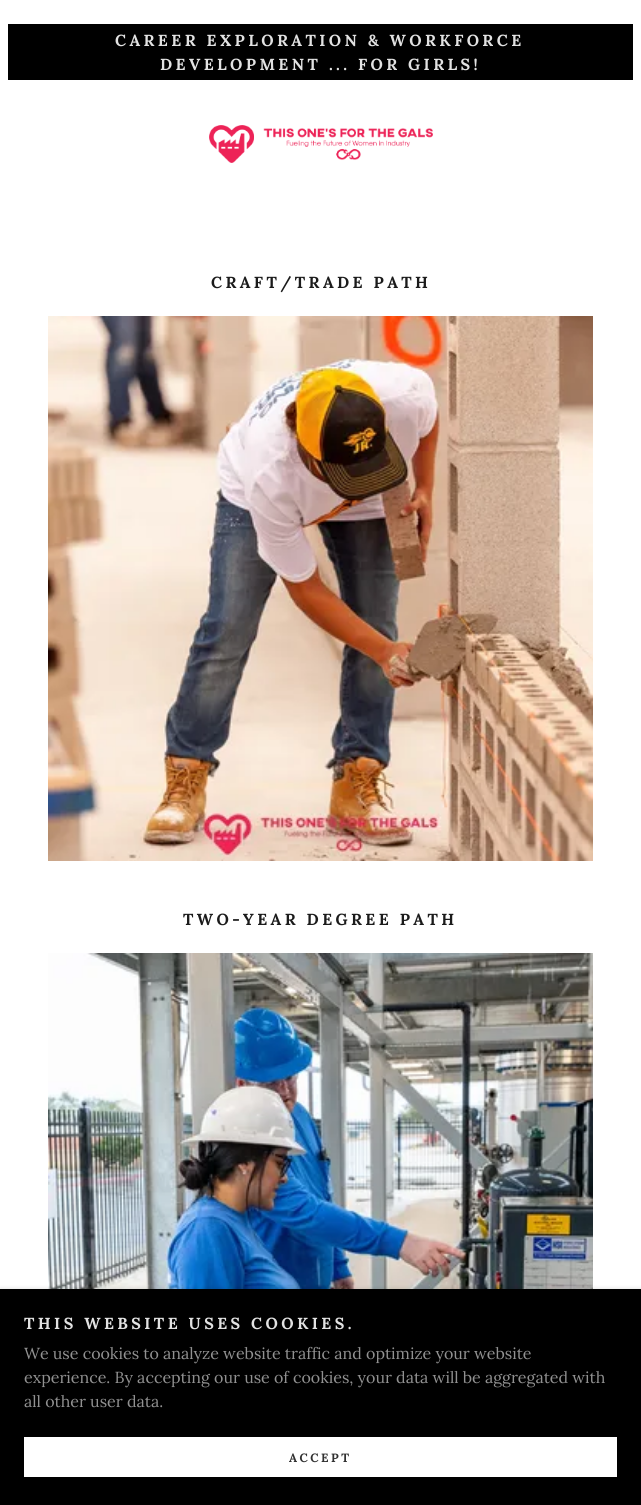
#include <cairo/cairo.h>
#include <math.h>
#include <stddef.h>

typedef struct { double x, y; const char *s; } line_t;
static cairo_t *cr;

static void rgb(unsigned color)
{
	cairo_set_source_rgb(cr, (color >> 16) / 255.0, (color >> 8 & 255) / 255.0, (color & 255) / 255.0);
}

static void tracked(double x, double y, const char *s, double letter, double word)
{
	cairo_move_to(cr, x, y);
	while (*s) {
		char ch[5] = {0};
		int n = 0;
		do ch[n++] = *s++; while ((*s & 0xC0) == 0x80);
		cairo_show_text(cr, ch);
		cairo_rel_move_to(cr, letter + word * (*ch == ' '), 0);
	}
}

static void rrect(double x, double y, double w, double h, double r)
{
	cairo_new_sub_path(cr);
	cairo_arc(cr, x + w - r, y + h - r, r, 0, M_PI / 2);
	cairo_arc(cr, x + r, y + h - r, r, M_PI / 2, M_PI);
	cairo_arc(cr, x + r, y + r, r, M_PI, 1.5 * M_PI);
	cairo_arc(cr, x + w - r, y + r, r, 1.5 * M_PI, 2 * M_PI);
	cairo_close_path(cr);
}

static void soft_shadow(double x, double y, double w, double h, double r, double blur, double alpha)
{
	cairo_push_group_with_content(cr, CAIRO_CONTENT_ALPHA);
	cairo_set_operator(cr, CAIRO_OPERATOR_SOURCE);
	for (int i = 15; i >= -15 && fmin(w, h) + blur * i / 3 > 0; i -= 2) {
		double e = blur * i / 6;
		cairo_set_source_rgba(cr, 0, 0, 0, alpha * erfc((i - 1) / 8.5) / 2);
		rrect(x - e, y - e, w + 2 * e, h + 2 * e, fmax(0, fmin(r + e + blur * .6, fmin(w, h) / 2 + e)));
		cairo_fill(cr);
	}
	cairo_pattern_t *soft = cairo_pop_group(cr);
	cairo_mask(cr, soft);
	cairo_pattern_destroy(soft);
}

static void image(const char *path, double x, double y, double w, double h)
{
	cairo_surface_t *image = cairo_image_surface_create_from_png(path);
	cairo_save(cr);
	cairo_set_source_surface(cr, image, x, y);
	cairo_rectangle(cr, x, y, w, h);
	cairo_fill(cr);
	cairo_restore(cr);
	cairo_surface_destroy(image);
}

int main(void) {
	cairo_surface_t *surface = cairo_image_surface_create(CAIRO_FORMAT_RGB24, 641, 1505);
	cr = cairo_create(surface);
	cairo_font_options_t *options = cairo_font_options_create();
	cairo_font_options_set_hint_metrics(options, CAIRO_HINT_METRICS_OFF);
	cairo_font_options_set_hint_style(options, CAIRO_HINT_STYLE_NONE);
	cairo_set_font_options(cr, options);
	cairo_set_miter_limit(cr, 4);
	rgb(0xffffff);
	cairo_paint(cr);
	rgb(0x000000);
	cairo_rectangle(cr, 8, 24, 625, 56);
	cairo_fill(cr);
	image("img/1.png", 209, 125, 224, 38);
	image("img/2.png", 48, 316, 545, 545);
	image("img/3.png", 48, 953, 545, 336);
	rgb(0x000000);
	soft_shadow(0, 1291, 641, 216, 0, 3, 0.3);
	rgb(0x000000);
	cairo_rectangle(cr, 0, 1289, 641, 216);
	cairo_fill(cr);
	rgb(0xffffff);
	cairo_rectangle(cr, 24, 1437, 593, 40);
	cairo_fill(cr);
	cairo_select_font_face(cr, "Lora", CAIRO_FONT_SLANT_NORMAL, CAIRO_FONT_WEIGHT_BOLD);
	cairo_set_font_size(cr, 16);
	rgb(0xe2e2e2);
	tracked(115, 46, "CAREER EXPLORATION & WORKFORCE", 3.4, 0);
	tracked(160, 70, "DEVELOPMENT ... FOR GIRLS!", 3.4, 0);
	rgb(0x1b1b1b);
	tracked(211, 288, "CRAFT/TRADE PATH", 3.4, 0);
	tracked(183, 925, "TWO-YEAR DEGREE PATH", 3.4, 0);
	rgb(0xe2e2e2);
	tracked(24, 1329, "THIS WEBSITE USES COOKIES.", 3.4, 0);
	cairo_select_font_face(cr, "Lora", CAIRO_FONT_SLANT_NORMAL, CAIRO_FONT_WEIGHT_NORMAL);
	rgb(0x919191);
	{
		static const line_t items[] = {
			{24, 1359, "We use cookies to analyze website traffic and optimize your website"},
			{24, 1383, "experience. By accepting our use of cookies, your data will be aggregated with"},
			{24, 1407, "all other user data."},
		};
		for (size_t i = 0; i < sizeof items / sizeof *items; i++) {
			cairo_move_to(cr, items[i].x, items[i].y);
			cairo_show_text(cr, items[i].s);
		}
	}
	cairo_select_font_face(cr, "Lora", CAIRO_FONT_SLANT_NORMAL, CAIRO_FONT_WEIGHT_BOLD);
	cairo_set_font_size(cr, 12);
	rgb(0x303030);
	tracked(289, 1462, "ACCEPT", 2.5, 0);
	cairo_surface_write_to_png(surface, "page.png");
	cairo_font_options_destroy(options);
	cairo_destroy(cr);
	cairo_surface_destroy(surface);
	return 0;
}
